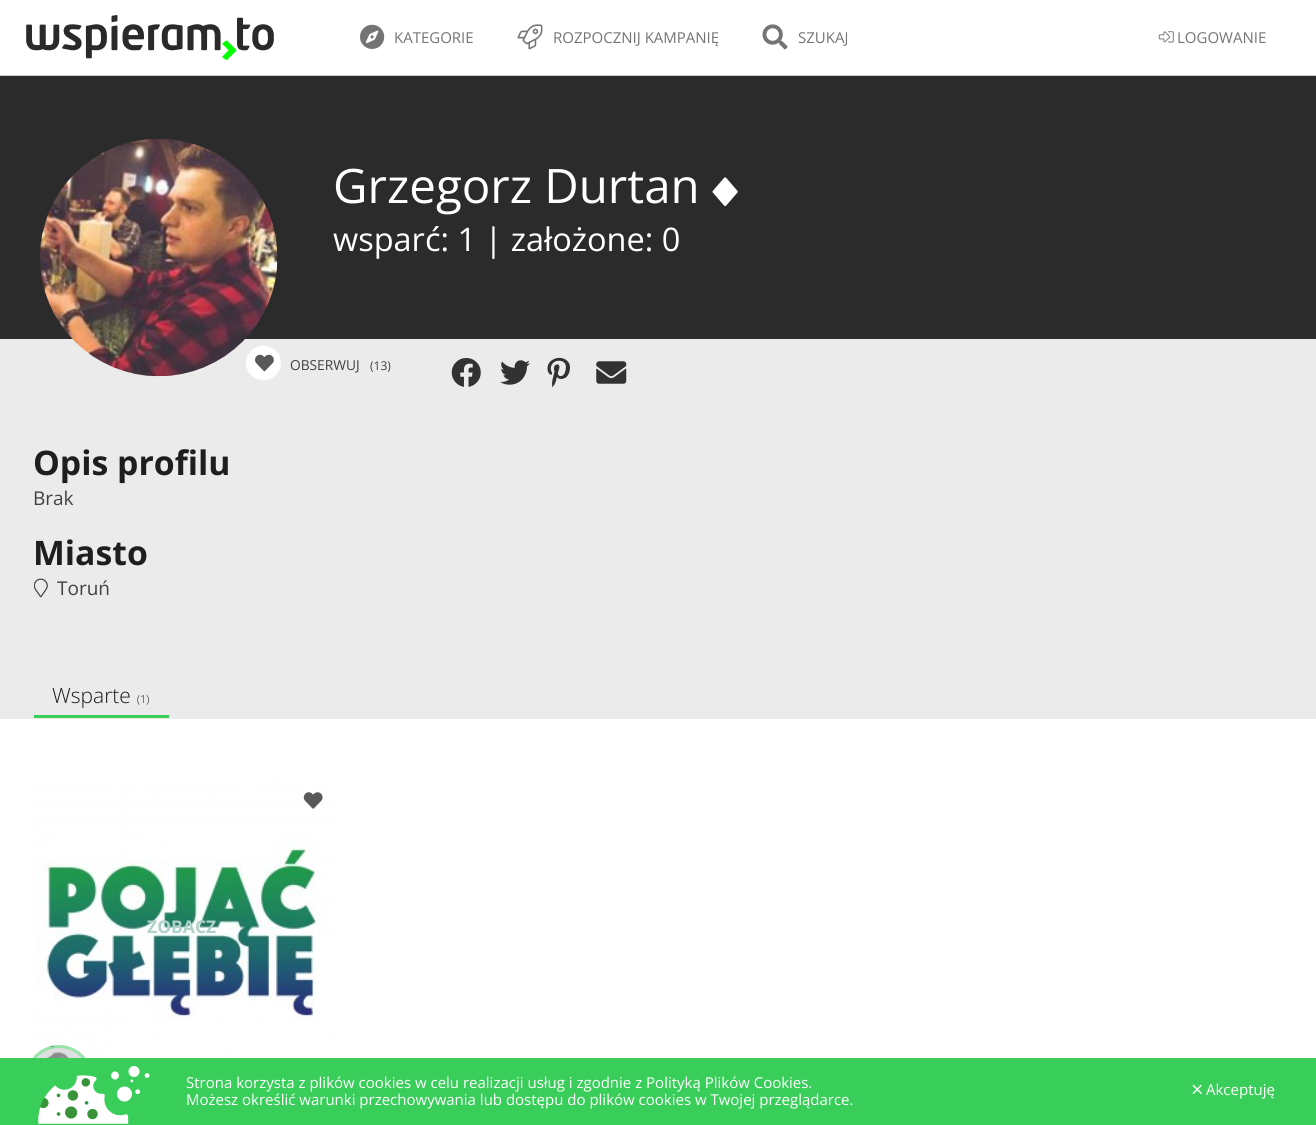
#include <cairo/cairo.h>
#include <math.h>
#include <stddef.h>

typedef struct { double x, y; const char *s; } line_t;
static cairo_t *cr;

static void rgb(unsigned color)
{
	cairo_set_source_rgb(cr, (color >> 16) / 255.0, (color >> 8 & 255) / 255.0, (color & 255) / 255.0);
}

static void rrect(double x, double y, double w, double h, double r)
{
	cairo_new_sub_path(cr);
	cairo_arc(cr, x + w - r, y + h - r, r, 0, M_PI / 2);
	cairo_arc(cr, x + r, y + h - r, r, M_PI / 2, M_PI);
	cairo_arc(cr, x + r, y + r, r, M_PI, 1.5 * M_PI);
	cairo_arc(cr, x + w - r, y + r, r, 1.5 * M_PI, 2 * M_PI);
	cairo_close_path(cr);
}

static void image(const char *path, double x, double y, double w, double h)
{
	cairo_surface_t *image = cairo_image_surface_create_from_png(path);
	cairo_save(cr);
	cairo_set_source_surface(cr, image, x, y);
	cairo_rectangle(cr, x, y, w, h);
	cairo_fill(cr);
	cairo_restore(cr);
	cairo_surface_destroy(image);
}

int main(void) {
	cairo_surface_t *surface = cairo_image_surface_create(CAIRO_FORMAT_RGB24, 1316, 1125);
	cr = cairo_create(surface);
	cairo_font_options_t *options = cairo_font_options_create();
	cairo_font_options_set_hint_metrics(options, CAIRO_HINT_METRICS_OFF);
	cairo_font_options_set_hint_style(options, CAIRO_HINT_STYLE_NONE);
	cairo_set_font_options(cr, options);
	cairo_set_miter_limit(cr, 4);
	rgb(0xffffff);
	cairo_paint(cr);
	rgb(0xcfcfcf);
	cairo_rectangle(cr, 0, 75, 1316, 1);
	cairo_fill(cr);
	image("img/1.png", 26, 15, 248, 45);
	image("img/2.png", 360, 24, 25, 25);
	image("img/3.png", 517, 24, 26, 26);
	image("img/4.png", 762, 24, 26, 26);
	image("img/5.png", 1158, 31, 16, 12);
	rgb(0x2b2b2b);
	cairo_rectangle(cr, 0, 76, 1316, 263);
	cairo_fill(cr);
	rgb(0xebebeb);
	cairo_rectangle(cr, 0, 339, 1316, 380);
	cairo_fill(cr);
	image("img/6.png", 40, 139, 238, 238);
	image("img/7.png", 712, 177, 26, 30);
	rgb(0xffffff);
	rrect(246, 346, 35, 34, 17);
	cairo_fill(cr);
	image("img/8.png", 255, 354, 19, 18);
	image("img/9.png", 451, 358, 30, 29);
	image("img/10.png", 500, 360, 30, 25);
	image("img/11.png", 547, 357, 23, 31);
	image("img/12.png", 596, 361, 31, 23);
	image("img/13.png", 34, 578, 14, 20);
	rgb(0x39ce5a);
	cairo_rectangle(cr, 34, 715, 135, 3);
	cairo_fill(cr);
	image("img/14.png", 34, 780, 300, 278);
	image("img/15.png", 303, 792, 20, 17);
	image("img/16.png", 32, 1045, 53, 13);
	cairo_arc(cr, 59, 1079, 32.5, 0, 2 * M_PI);
	cairo_set_source_rgba(cr, 0.224, 0.808, 0.353, 0.5);
	cairo_set_line_width(cr, 3);
	cairo_stroke(cr);
	rgb(0x39ce5a);
	cairo_rectangle(cr, 0, 1058, 1316, 67);
	cairo_fill(cr);
	image("img/17.png", 38, 1066, 112, 58);
	image("img/18.png", 1192, 1084, 10, 10);
	cairo_select_font_face(cr, "Open Sans", CAIRO_FONT_SLANT_NORMAL, CAIRO_FONT_WEIGHT_NORMAL);
	cairo_set_font_size(cr, 15);
	rgb(0x747474);
	{
		static const line_t items[] = {
			{394, 43, "KATEGORIE"},
			{553, 43, "ROZPOCZNIJ KAMPANIĘ"},
			{798, 43, "SZUKAJ"},
			{1177, 43, "LOGOWANIE"},
		};
		for (size_t i = 0; i < sizeof items / sizeof *items; i++) {
			cairo_move_to(cr, items[i].x, items[i].y);
			cairo_show_text(cr, items[i].s);
		}
	}
	cairo_set_font_size(cr, 47.5);
	rgb(0xffffff);
	cairo_move_to(cr, 333, 203);
	cairo_show_text(cr, "Grzegorz Durtan");
	cairo_set_font_size(cr, 32.5);
	cairo_move_to(cr, 333, 251);
	cairo_show_text(cr, "wsparć: 1 | założone: 0");
	cairo_set_font_size(cr, 13.75);
	rgb(0x414141);
	cairo_move_to(cr, 290, 370);
	cairo_show_text(cr, "OBSERWUJ");
	cairo_set_font_size(cr, 12);
	cairo_move_to(cr, 370, 370);
	cairo_show_text(cr, "(13)");
	cairo_select_font_face(cr, "Open Sans", CAIRO_FONT_SLANT_NORMAL, CAIRO_FONT_WEIGHT_BOLD);
	cairo_set_font_size(cr, 33.75);
	rgb(0x1e1e1e);
	cairo_move_to(cr, 33, 475);
	cairo_show_text(cr, "Opis profilu");
	cairo_select_font_face(cr, "Open Sans", CAIRO_FONT_SLANT_NORMAL, CAIRO_FONT_WEIGHT_NORMAL);
	cairo_set_font_size(cr, 19);
	rgb(0x414141);
	cairo_move_to(cr, 33, 505);
	cairo_show_text(cr, "Brak");
	cairo_select_font_face(cr, "Open Sans", CAIRO_FONT_SLANT_NORMAL, CAIRO_FONT_WEIGHT_BOLD);
	cairo_set_font_size(cr, 33.75);
	rgb(0x1e1e1e);
	cairo_move_to(cr, 33, 565);
	cairo_show_text(cr, "Miasto");
	cairo_select_font_face(cr, "Open Sans", CAIRO_FONT_SLANT_NORMAL, CAIRO_FONT_WEIGHT_NORMAL);
	cairo_set_font_size(cr, 19);
	rgb(0x414141);
	cairo_move_to(cr, 57, 595);
	cairo_show_text(cr, "Toruń");
	cairo_select_font_face(cr, "Open Sans Light", CAIRO_FONT_SLANT_NORMAL, CAIRO_FONT_WEIGHT_NORMAL);
	cairo_set_font_size(cr, 21);
	rgb(0x181818);
	cairo_move_to(cr, 52, 703);
	cairo_show_text(cr, "Wsparte");
	cairo_set_font_size(cr, 11);
	cairo_move_to(cr, 137, 703);
	cairo_show_text(cr, "(1)");
	cairo_select_font_face(cr, "Open Sans", CAIRO_FONT_SLANT_NORMAL, CAIRO_FONT_WEIGHT_BOLD);
	cairo_set_font_size(cr, 17.5);
	rgb(0xb1d1c9);
	cairo_move_to(cr, 147, 933);
	cairo_show_text(cr, "ZOBACZ");
	cairo_select_font_face(cr, "Open Sans", CAIRO_FONT_SLANT_NORMAL, CAIRO_FONT_WEIGHT_NORMAL);
	cairo_set_font_size(cr, 15);
	rgb(0xffffff);
	{
		static const line_t items[] = {
			{186, 1088, "Strona korzysta z plików cookies w celu realizacji usług i zgodnie z Polityką Plików Cookies."},
			{186, 1105, "Możesz określić warunki przechowywania lub dostępu do plików cookies w Twojej przeglądarce."},
			{1206, 1095, "Akceptuję"},
		};
		for (size_t i = 0; i < sizeof items / sizeof *items; i++) {
			cairo_move_to(cr, items[i].x, items[i].y);
			cairo_show_text(cr, items[i].s);
		}
	}
	cairo_surface_write_to_png(surface, "page.png");
	cairo_font_options_destroy(options);
	cairo_destroy(cr);
	cairo_surface_destroy(surface);
	return 0;
}
